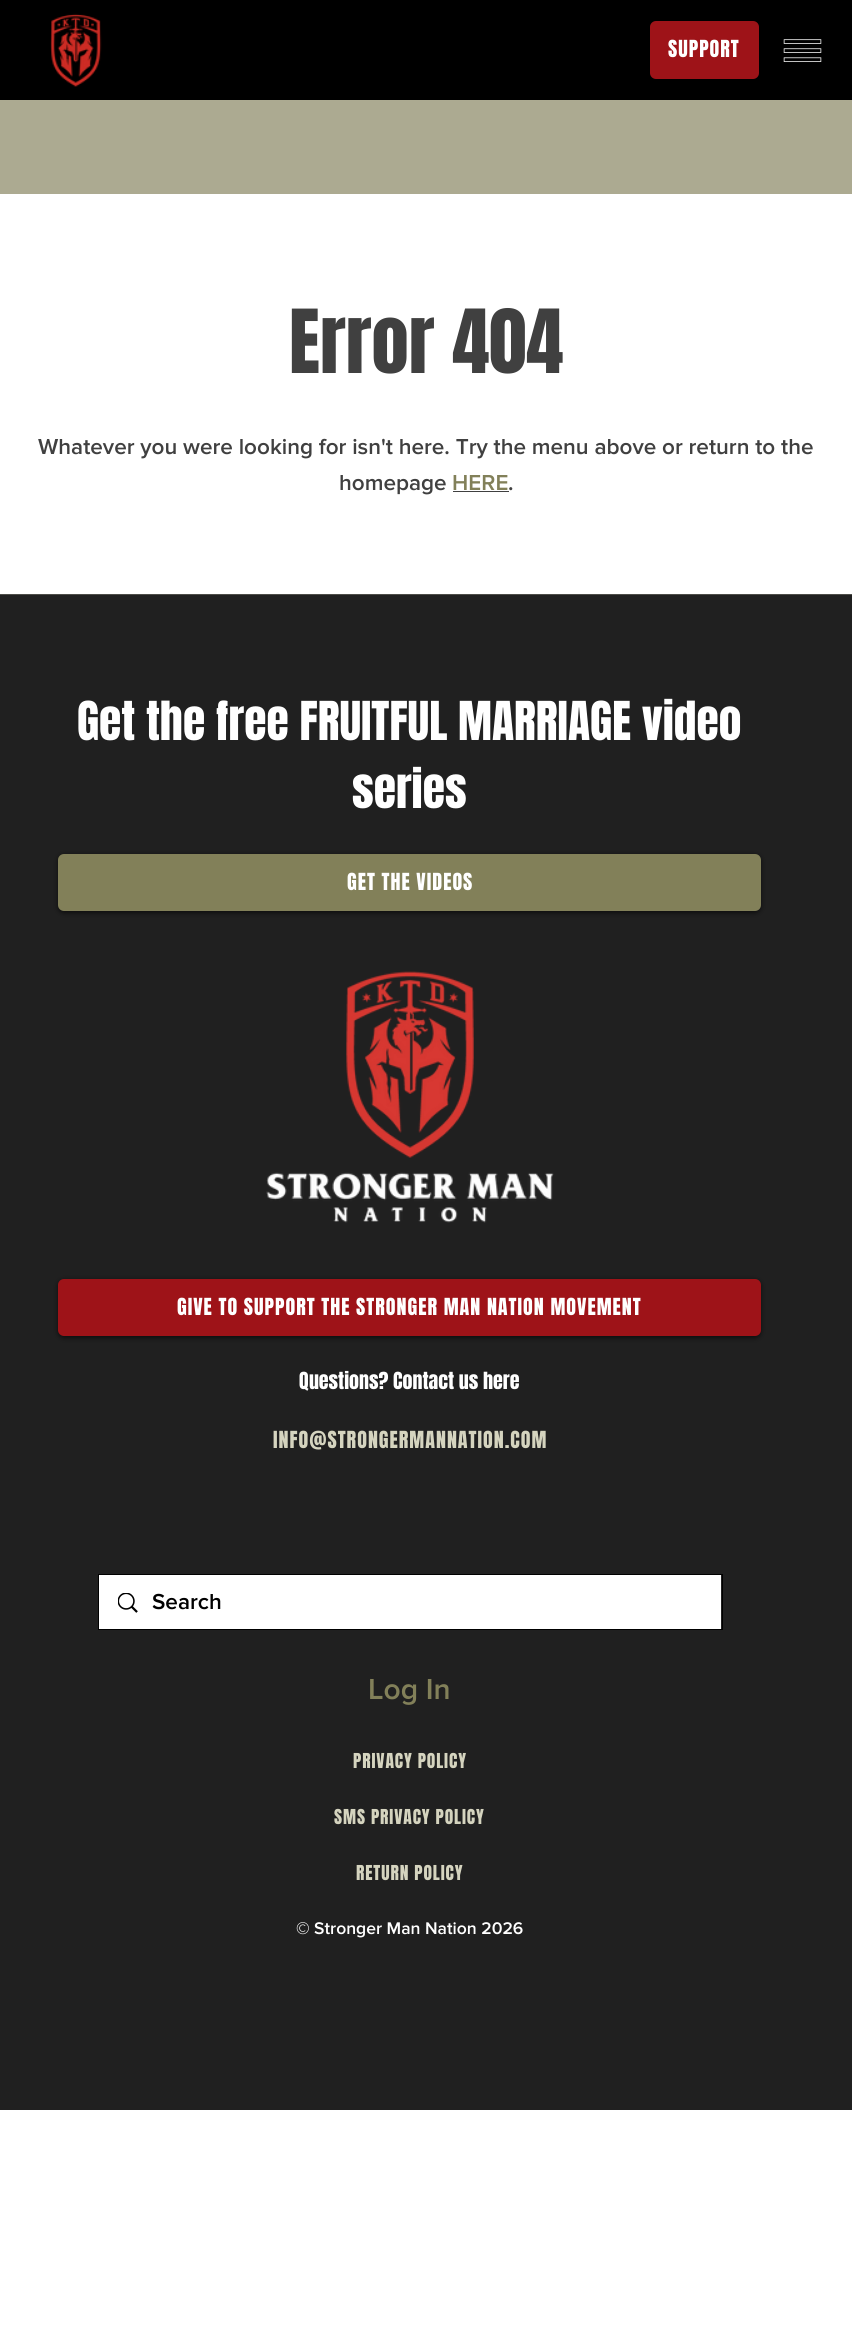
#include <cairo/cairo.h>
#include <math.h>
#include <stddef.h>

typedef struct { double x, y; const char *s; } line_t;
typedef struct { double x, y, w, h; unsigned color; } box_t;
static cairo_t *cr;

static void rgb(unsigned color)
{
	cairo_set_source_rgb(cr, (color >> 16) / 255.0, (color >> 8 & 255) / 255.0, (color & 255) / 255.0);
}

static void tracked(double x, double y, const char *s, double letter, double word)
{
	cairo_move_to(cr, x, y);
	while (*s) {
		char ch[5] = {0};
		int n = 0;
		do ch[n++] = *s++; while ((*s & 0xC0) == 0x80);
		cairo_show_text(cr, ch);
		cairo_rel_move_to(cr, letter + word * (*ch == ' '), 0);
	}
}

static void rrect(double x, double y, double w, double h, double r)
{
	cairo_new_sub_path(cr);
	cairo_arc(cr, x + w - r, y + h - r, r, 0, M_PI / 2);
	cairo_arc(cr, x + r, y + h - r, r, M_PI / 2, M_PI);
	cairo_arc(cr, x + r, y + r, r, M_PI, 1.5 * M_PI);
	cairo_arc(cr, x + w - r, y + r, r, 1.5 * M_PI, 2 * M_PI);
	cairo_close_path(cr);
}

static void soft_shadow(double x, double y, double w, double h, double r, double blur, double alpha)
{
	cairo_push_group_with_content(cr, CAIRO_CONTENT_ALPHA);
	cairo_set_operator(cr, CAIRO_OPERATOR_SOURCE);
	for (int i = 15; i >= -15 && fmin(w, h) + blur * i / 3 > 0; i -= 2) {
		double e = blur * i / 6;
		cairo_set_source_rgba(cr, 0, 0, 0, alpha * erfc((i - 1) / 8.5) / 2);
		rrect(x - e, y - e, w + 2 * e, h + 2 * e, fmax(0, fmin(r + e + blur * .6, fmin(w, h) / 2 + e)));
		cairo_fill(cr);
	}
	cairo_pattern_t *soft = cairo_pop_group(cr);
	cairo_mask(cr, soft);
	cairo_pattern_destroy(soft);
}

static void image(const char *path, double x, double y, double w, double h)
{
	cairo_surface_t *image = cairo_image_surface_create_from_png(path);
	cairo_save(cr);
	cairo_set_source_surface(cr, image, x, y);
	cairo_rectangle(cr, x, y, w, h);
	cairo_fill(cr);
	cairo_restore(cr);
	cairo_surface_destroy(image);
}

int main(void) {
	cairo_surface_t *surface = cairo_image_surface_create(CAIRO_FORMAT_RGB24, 852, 2336);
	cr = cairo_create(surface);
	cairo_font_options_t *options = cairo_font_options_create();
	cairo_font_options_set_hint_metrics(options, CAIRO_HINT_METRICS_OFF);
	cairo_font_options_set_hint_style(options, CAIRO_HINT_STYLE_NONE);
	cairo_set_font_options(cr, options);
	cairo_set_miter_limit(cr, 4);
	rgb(0xffffff);
	cairo_paint(cr);
	rgb(0x000000);
	cairo_rectangle(cr, 0, 0, 852, 100);
	cairo_fill(cr);
	image("img/1.png", 50, 13, 52, 74);
	rgb(0x9e1318);
	rrect(650, 21, 109, 58, 6);
	cairo_fill(cr);
	image("img/2.png", 783, 39, 39, 23);
	{
		static const box_t items[] = {
			{0, 100, 852, 94, 0xacaa91},
			{453, 491, 56, 1, 0x404040},
			{0, 594, 852, 1, 0x4d4d48},
			{0, 595, 852, 1515, 0x202020},
		};
		for (size_t i = 0; i < sizeof items / sizeof *items; i++) {
			rgb(items[i].color);
			cairo_rectangle(cr, items[i].x, items[i].y, items[i].w, items[i].h);
			cairo_fill(cr);
		}
	}
	rgb(0x000000);
	soft_shadow(58, 855, 703, 58, 6, 2.5, 0.6);
	rgb(0x828059);
	rrect(58, 854, 703, 57, 6);
	cairo_fill(cr);
	image("img/3.png", 266, 971, 288, 252);
	rgb(0x000000);
	soft_shadow(58, 1280, 703, 58, 6, 2.5, 0.6);
	rgb(0x9e1318);
	rrect(58, 1279, 703, 57, 6);
	cairo_fill(cr);
	cairo_rectangle(cr, 98.5, 1574.5, 624, 55);
	rgb(0x000000);
	cairo_set_line_width(cr, 1);
	cairo_stroke(cr);
	rgb(0xffffff);
	cairo_rectangle(cr, 99, 1575, 622, 54);
	cairo_fill(cr);
	image("img/4.png", 118, 1593, 20, 20);
	cairo_select_font_face(cr, "Anton", CAIRO_FONT_SLANT_NORMAL, CAIRO_FONT_WEIGHT_NORMAL);
	cairo_set_font_size(cr, 20);
	tracked(668, 57, "SUPPORT", 1, 0);
	cairo_set_font_size(cr, 75);
	rgb(0x404040);
	cairo_move_to(cr, 289, 373);
	cairo_show_text(cr, "Error 404");
	cairo_select_font_face(cr, "Proxima Nova SemiBold", CAIRO_FONT_SLANT_NORMAL, CAIRO_FONT_WEIGHT_NORMAL);
	cairo_set_font_size(cr, 22.5);
	cairo_move_to(cr, 38, 454);
	cairo_show_text(cr, "Whatever you were looking for isn't here. Try the menu above or return to the");
	cairo_move_to(cr, 339, 490);
	cairo_show_text(cr, "homepage");
	rgb(0x828059);
	cairo_move_to(cr, 452, 490);
	cairo_show_text(cr, "HERE");
	rgb(0x404040);
	cairo_move_to(cr, 508, 490);
	cairo_show_text(cr, ".");
	cairo_select_font_face(cr, "Anton", CAIRO_FONT_SLANT_NORMAL, CAIRO_FONT_WEIGHT_NORMAL);
	cairo_set_font_size(cr, 45.6);
	rgb(0xffffff);
	cairo_move_to(cr, 77, 740);
	cairo_show_text(cr, "Get the free FRUITFUL MARRIAGE video");
	cairo_move_to(cr, 352, 808);
	cairo_show_text(cr, "series");
	cairo_set_font_size(cr, 20);
	tracked(347, 890, "GET THE VIDEOS", 1, 0);
	tracked(177, 1315, "GIVE TO SUPPORT THE STRONGER MAN NATION MOVEMENT", 1, 0);
	cairo_move_to(cr, 299, 1389);
	cairo_show_text(cr, "Questions? Contact us here");
	rgb(0xd5d4bf);
	tracked(273, 1448, "INFO@STRONGERMANNATION.COM", 1, 0);
	cairo_select_font_face(cr, "Proxima Nova SemiBold", CAIRO_FONT_SLANT_NORMAL, CAIRO_FONT_WEIGHT_NORMAL);
	cairo_set_font_size(cr, 22.5);
	rgb(0x000000);
	cairo_move_to(cr, 152, 1609);
	cairo_show_text(cr, "Search");
	cairo_set_font_size(cr, 30);
	rgb(0x828059);
	cairo_move_to(cr, 368, 1699);
	cairo_show_text(cr, "Log In");
	cairo_select_font_face(cr, "Anton", CAIRO_FONT_SLANT_NORMAL, CAIRO_FONT_WEIGHT_NORMAL);
	cairo_set_font_size(cr, 17.5);
	rgb(0xd5d4bf);
	{
		static const line_t items[] = {
			{353, 1768, "PRIVACY POLICY"},
			{334, 1824, "SMS PRIVACY POLICY"},
			{356, 1880, "RETURN POLICY"},
		};
		for (size_t i = 0; i < sizeof items / sizeof *items; i++) {
			tracked(items[i].x, items[i].y, items[i].s, 0.9, 0);
		}
	}
	cairo_select_font_face(cr, "Proxima Nova SemiBold", CAIRO_FONT_SLANT_NORMAL, CAIRO_FONT_WEIGHT_NORMAL);
	rgb(0xffffff);
	cairo_move_to(cr, 296, 1934);
	cairo_show_text(cr, "© Stronger Man Nation 2026");
	cairo_surface_write_to_png(surface, "page.png");
	cairo_font_options_destroy(options);
	cairo_destroy(cr);
	cairo_surface_destroy(surface);
	return 0;
}
